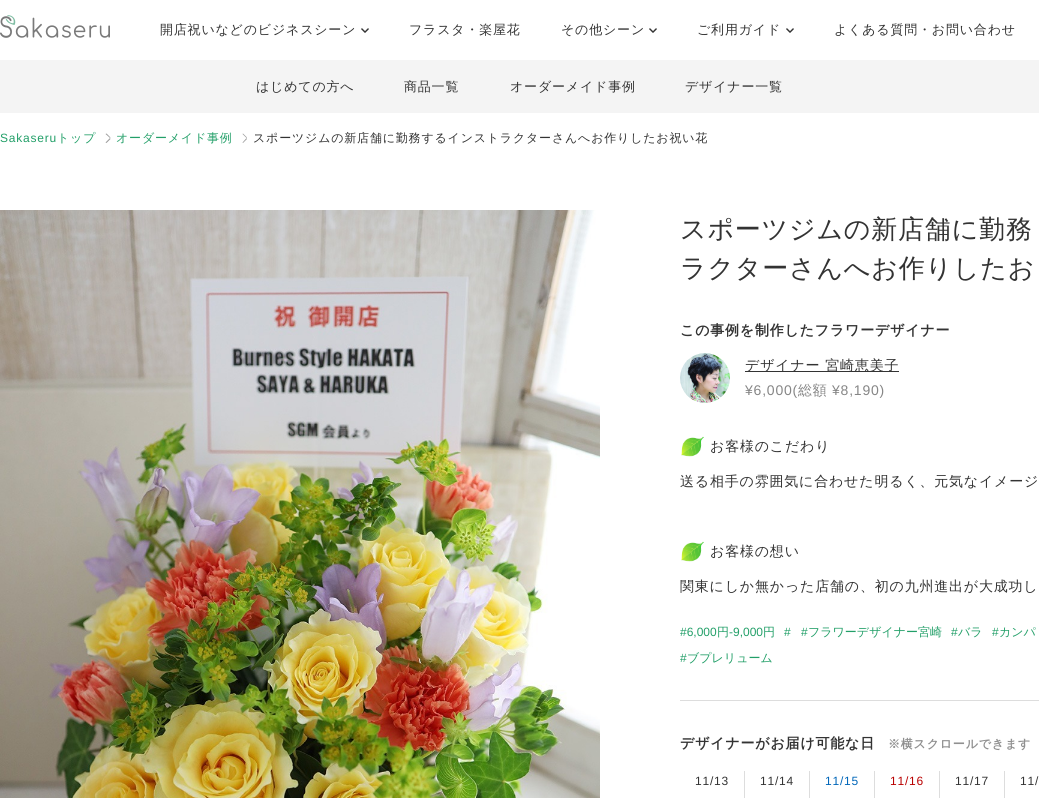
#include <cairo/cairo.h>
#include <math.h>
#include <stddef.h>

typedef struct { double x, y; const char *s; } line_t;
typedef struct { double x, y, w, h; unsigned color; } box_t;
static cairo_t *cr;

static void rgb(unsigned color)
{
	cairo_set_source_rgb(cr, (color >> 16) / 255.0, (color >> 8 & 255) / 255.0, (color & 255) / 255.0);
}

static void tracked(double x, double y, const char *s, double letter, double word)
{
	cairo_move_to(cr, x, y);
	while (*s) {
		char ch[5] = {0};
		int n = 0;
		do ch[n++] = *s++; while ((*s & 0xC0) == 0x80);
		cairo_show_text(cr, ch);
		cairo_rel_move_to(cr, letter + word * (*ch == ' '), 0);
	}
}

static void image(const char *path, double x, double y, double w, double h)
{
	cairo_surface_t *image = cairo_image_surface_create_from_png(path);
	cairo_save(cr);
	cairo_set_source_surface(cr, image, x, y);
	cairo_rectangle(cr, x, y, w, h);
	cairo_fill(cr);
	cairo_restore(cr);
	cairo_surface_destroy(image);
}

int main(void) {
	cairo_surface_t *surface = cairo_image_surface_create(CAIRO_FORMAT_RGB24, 1039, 798);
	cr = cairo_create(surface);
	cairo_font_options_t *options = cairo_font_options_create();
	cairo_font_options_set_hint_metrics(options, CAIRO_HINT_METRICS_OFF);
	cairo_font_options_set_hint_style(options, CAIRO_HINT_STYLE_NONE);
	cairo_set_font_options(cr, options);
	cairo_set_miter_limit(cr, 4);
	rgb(0xffffff);
	cairo_paint(cr);
	image("img/1.png", 0, 15, 110, 23);
	image("img/2.png", 361, 28, 8, 5);
	image("img/2.png", 649, 28, 8, 5);
	image("img/2.png", 786, 28, 8, 5);
	rgb(0xf4f4f4);
	cairo_rectangle(cr, 0, 60, 1039, 53);
	cairo_fill(cr);
	rgb(0x9c9c9c);
	cairo_new_path(cr);
	cairo_move_to(cr, 105.5, 134);
	cairo_line_to(cr, 106.5, 133.5);
	cairo_line_to(cr, 110.5, 137.5);
	cairo_line_to(cr, 110, 138);
	cairo_close_path(cr);
	cairo_move_to(cr, 105.5, 142.5);
	cairo_line_to(cr, 110, 138);
	cairo_line_to(cr, 110.5, 139);
	cairo_line_to(cr, 106.5, 143);
	cairo_close_path(cr);
	cairo_fill(cr);
	cairo_new_path(cr);
	cairo_move_to(cr, 242.5, 134);
	cairo_line_to(cr, 243, 133.5);
	cairo_line_to(cr, 247, 137.5);
	cairo_line_to(cr, 246.5, 138);
	cairo_close_path(cr);
	cairo_move_to(cr, 242.5, 142.5);
	cairo_line_to(cr, 246.5, 138);
	cairo_line_to(cr, 247, 139);
	cairo_line_to(cr, 243, 143);
	cairo_close_path(cr);
	cairo_fill(cr);
	image("img/3.png", 0, 210, 600, 588);
	image("img/4.png", 680, 353, 50, 50);
	rgb(0x333333);
	cairo_rectangle(cr, 745, 371, 154, 1);
	cairo_fill(cr);
	image("img/5.png", 681, 436, 23, 21);
	image("img/5.png", 681, 541, 23, 21);
	{
		static const box_t items[] = {
			{680, 700, 359, 1, 0xdddddd},
			{744, 771, 1, 27, 0xdddddd},
			{809, 771, 1, 27, 0xdddddd},
			{874, 771, 1, 27, 0xdddddd},
			{939, 771, 1, 27, 0xdddddd},
			{1004, 771, 1, 27, 0xdddddd},
		};
		for (size_t i = 0; i < sizeof items / sizeof *items; i++) {
			rgb(items[i].color);
			cairo_rectangle(cr, items[i].x, items[i].y, items[i].w, items[i].h);
			cairo_fill(cr);
		}
	}
	cairo_select_font_face(cr, "WenQuanYi Zen Hei Medium", CAIRO_FONT_SLANT_NORMAL, CAIRO_FONT_WEIGHT_NORMAL);
	cairo_set_font_size(cr, 13);
	rgb(0x333333);
	{
		static const line_t items[] = {
			{160, 34, "開店祝いなどのビジネスシーン"},
			{409, 34, "フラスタ・楽屋花"},
			{561, 34, "その他シーン"},
			{697, 34, "ご利用ガイド"},
			{834, 34, "よくある質問・お問い合わせ"},
			{256, 91, "はじめての方へ"},
			{404, 91, "商品一覧"},
			{510, 91, "オーダーメイド事例"},
			{685, 91, "デザイナー一覧"},
		};
		for (size_t i = 0; i < sizeof items / sizeof *items; i++) {
			tracked(items[i].x, items[i].y, items[i].s, 0.8, 0);
		}
	}
	cairo_select_font_face(cr, "Liberation Sans", CAIRO_FONT_SLANT_NORMAL, CAIRO_FONT_WEIGHT_NORMAL);
	cairo_set_font_size(cr, 12);
	rgb(0x229f68);
	tracked(0, 142, "Sakaseru", 0.8, 0);
	cairo_select_font_face(cr, "WenQuanYi Zen Hei Medium", CAIRO_FONT_SLANT_NORMAL, CAIRO_FONT_WEIGHT_NORMAL);
	tracked(57, 142, "トップ", 0.8, 0);
	tracked(116, 142, "オーダーメイド事例", 0.8, 0);
	rgb(0x333333);
	tracked(253, 142, "スポーツジムの新店舗に勤務するインストラクターさんへお作りしたお祝い花", 0.8, 0);
	cairo_set_font_size(cr, 26);
	tracked(680, 238, "スポーツジムの新店舗に勤務", 0.8, 0);
	tracked(680, 277, "ラクターさんへお作りしたお", 0.8, 0);
	cairo_select_font_face(cr, "WenQuanYi Zen Hei", CAIRO_FONT_SLANT_NORMAL, CAIRO_FONT_WEIGHT_BOLD);
	cairo_set_font_size(cr, 14);
	tracked(680, 335, "この事例を制作したフラワーデザイナー", 0.8, 0);
	cairo_select_font_face(cr, "WenQuanYi Zen Hei Medium", CAIRO_FONT_SLANT_NORMAL, CAIRO_FONT_WEIGHT_NORMAL);
	tracked(745, 370, "デザイナー 宮崎恵美子", 0.8, 0);
	cairo_select_font_face(cr, "Liberation Sans", CAIRO_FONT_SLANT_NORMAL, CAIRO_FONT_WEIGHT_NORMAL);
	rgb(0x868686);
	tracked(745, 395, "¥6,000(", 0.8, 0);
	cairo_select_font_face(cr, "WenQuanYi Zen Hei Medium", CAIRO_FONT_SLANT_NORMAL, CAIRO_FONT_WEIGHT_NORMAL);
	tracked(798, 395, "総額", 0.8, 0);
	cairo_select_font_face(cr, "Liberation Sans", CAIRO_FONT_SLANT_NORMAL, CAIRO_FONT_WEIGHT_NORMAL);
	tracked(832, 395, "¥8,190)", 0.8, 0);
	cairo_select_font_face(cr, "WenQuanYi Zen Hei Medium", CAIRO_FONT_SLANT_NORMAL, CAIRO_FONT_WEIGHT_NORMAL);
	rgb(0x333333);
	{
		static const line_t items[] = {
			{710, 451, "お客様のこだわり"},
			{680, 486, "送る相手の雰囲気に合わせた明るく、元気なイメージ"},
			{710, 556, "お客様の想い"},
			{680, 591, "関東にしか無かった店舗の、初の九州進出が大成功し"},
		};
		for (size_t i = 0; i < sizeof items / sizeof *items; i++) {
			tracked(items[i].x, items[i].y, items[i].s, 0.8, 0);
		}
	}
	cairo_select_font_face(cr, "Liberation Sans", CAIRO_FONT_SLANT_NORMAL, CAIRO_FONT_WEIGHT_NORMAL);
	cairo_set_font_size(cr, 12);
	rgb(0x229f68);
	cairo_move_to(cr, 680, 636);
	cairo_show_text(cr, "#6,000");
	cairo_select_font_face(cr, "WenQuanYi Zen Hei Medium", CAIRO_FONT_SLANT_NORMAL, CAIRO_FONT_WEIGHT_NORMAL);
	cairo_move_to(cr, 717, 636);
	cairo_show_text(cr, "円");
	cairo_select_font_face(cr, "Liberation Sans", CAIRO_FONT_SLANT_NORMAL, CAIRO_FONT_WEIGHT_NORMAL);
	cairo_move_to(cr, 729, 636);
	cairo_show_text(cr, "-9,000");
	cairo_select_font_face(cr, "WenQuanYi Zen Hei Medium", CAIRO_FONT_SLANT_NORMAL, CAIRO_FONT_WEIGHT_NORMAL);
	cairo_move_to(cr, 763, 636);
	cairo_show_text(cr, "円");
	cairo_select_font_face(cr, "Liberation Sans", CAIRO_FONT_SLANT_NORMAL, CAIRO_FONT_WEIGHT_NORMAL);
	cairo_move_to(cr, 784, 636);
	cairo_show_text(cr, "#");
	cairo_move_to(cr, 801, 636);
	cairo_show_text(cr, "#");
	cairo_select_font_face(cr, "WenQuanYi Zen Hei Medium", CAIRO_FONT_SLANT_NORMAL, CAIRO_FONT_WEIGHT_NORMAL);
	cairo_move_to(cr, 808, 636);
	cairo_show_text(cr, "フラワーデザイナー宮崎");
	cairo_select_font_face(cr, "Liberation Sans", CAIRO_FONT_SLANT_NORMAL, CAIRO_FONT_WEIGHT_NORMAL);
	cairo_move_to(cr, 951, 636);
	cairo_show_text(cr, "#");
	cairo_select_font_face(cr, "WenQuanYi Zen Hei Medium", CAIRO_FONT_SLANT_NORMAL, CAIRO_FONT_WEIGHT_NORMAL);
	cairo_move_to(cr, 958, 636);
	cairo_show_text(cr, "バラ");
	cairo_select_font_face(cr, "Liberation Sans", CAIRO_FONT_SLANT_NORMAL, CAIRO_FONT_WEIGHT_NORMAL);
	cairo_move_to(cr, 992, 636);
	cairo_show_text(cr, "#");
	cairo_select_font_face(cr, "WenQuanYi Zen Hei Medium", CAIRO_FONT_SLANT_NORMAL, CAIRO_FONT_WEIGHT_NORMAL);
	cairo_move_to(cr, 999, 636);
	cairo_show_text(cr, "カンパ");
	cairo_select_font_face(cr, "Liberation Sans", CAIRO_FONT_SLANT_NORMAL, CAIRO_FONT_WEIGHT_NORMAL);
	cairo_move_to(cr, 680, 662);
	cairo_show_text(cr, "#");
	cairo_select_font_face(cr, "WenQuanYi Zen Hei Medium", CAIRO_FONT_SLANT_NORMAL, CAIRO_FONT_WEIGHT_NORMAL);
	cairo_move_to(cr, 687, 662);
	cairo_show_text(cr, "ブプレリューム");
	cairo_select_font_face(cr, "WenQuanYi Zen Hei", CAIRO_FONT_SLANT_NORMAL, CAIRO_FONT_WEIGHT_BOLD);
	cairo_set_font_size(cr, 14);
	rgb(0x333333);
	tracked(680, 748, "デザイナーがお届け可能な日", 0.8, 0);
	cairo_set_font_size(cr, 12);
	rgb(0x909090);
	tracked(888, 748, "※横スクロールできます", 0.8, 0);
	cairo_select_font_face(cr, "Liberation Sans", CAIRO_FONT_SLANT_NORMAL, CAIRO_FONT_WEIGHT_NORMAL);
	rgb(0x333333);
	tracked(695, 785, "11/13", 0.8, 0);
	tracked(760, 785, "11/14", 0.8, 0);
	rgb(0x0066b9);
	tracked(825, 785, "11/15", 0.8, 0);
	rgb(0xb90000);
	tracked(890, 785, "11/16", 0.8, 0);
	rgb(0x333333);
	tracked(955, 785, "11/17", 0.8, 0);
	tracked(1020, 785, "11/", 0.8, 0);
	cairo_surface_write_to_png(surface, "page.png");
	cairo_font_options_destroy(options);
	cairo_destroy(cr);
	cairo_surface_destroy(surface);
	return 0;
}
